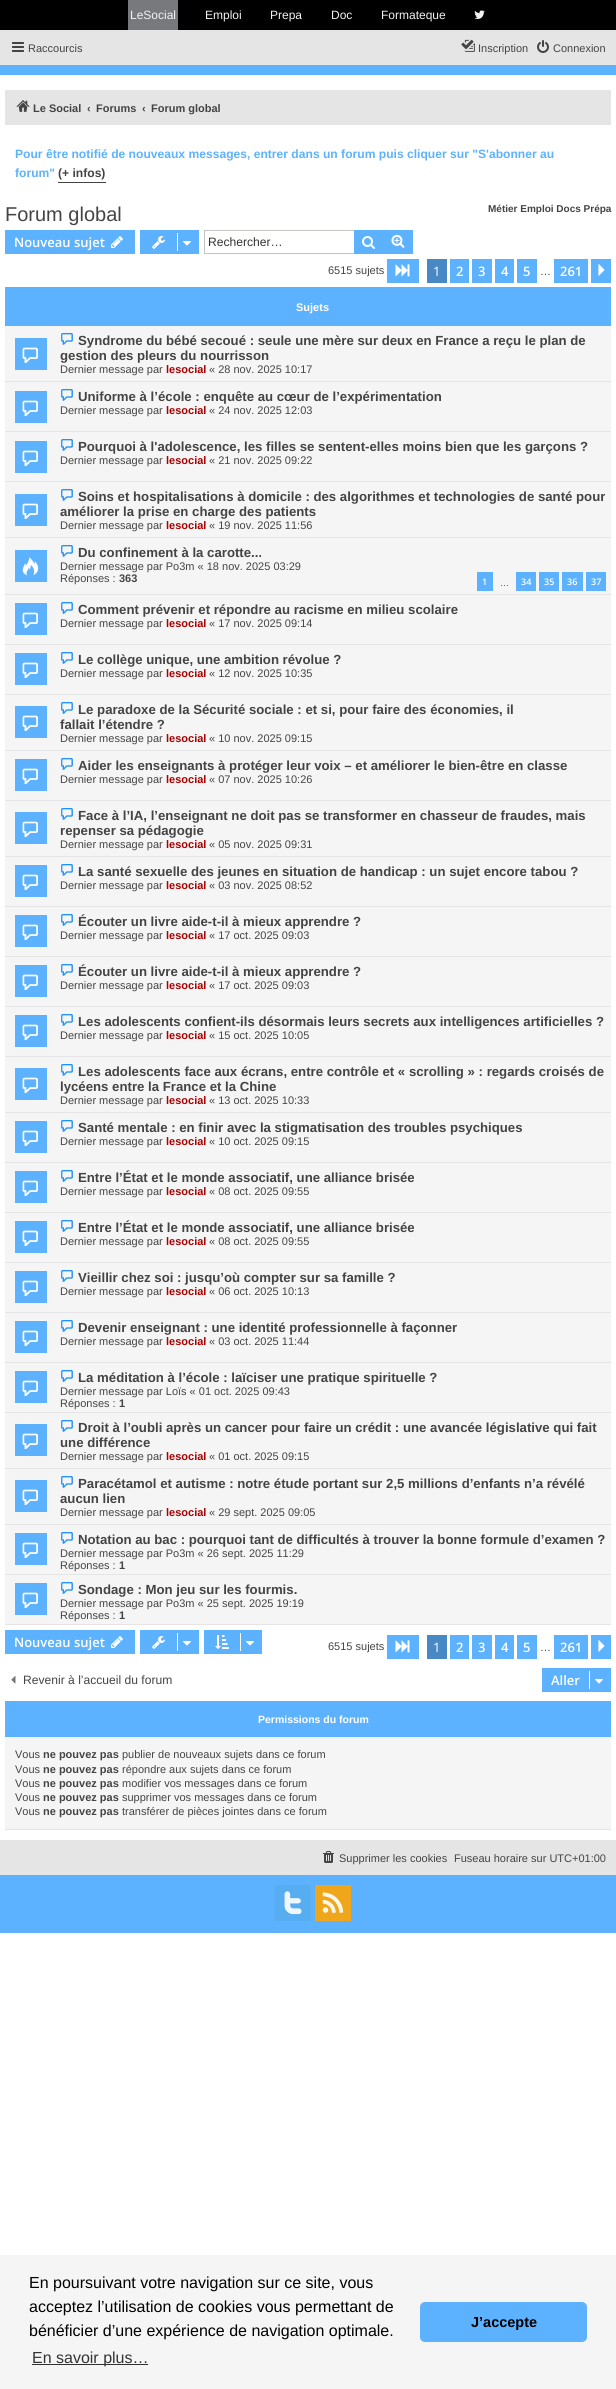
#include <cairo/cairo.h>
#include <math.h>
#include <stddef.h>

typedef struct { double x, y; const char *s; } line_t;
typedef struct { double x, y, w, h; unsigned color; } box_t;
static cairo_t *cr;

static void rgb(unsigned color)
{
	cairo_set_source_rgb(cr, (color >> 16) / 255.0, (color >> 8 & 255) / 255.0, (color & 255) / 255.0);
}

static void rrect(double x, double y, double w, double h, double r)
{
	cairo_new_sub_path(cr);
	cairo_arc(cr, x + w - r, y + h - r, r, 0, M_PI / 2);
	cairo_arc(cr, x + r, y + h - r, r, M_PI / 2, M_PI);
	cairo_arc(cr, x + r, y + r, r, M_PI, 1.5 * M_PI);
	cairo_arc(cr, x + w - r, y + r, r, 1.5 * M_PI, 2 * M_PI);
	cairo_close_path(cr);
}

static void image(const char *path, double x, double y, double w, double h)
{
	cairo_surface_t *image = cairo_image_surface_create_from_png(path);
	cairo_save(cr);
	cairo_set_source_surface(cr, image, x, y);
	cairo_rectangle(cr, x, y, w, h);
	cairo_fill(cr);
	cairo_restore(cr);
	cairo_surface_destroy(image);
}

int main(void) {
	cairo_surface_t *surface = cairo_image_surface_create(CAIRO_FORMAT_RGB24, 616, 2389);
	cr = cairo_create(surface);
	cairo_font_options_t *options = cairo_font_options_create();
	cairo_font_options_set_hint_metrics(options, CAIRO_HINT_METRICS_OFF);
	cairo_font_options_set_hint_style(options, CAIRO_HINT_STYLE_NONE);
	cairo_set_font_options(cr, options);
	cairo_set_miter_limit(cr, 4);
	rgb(0xffffff);
	cairo_paint(cr);
	rgb(0x000000);
	cairo_rectangle(cr, 0, 0, 616, 30);
	cairo_fill(cr);
	rgb(0x77797c);
	cairo_rectangle(cr, 128, 0, 50, 30);
	cairo_fill(cr);
	image("img/1.png", 474, 10, 11, 9);
	rgb(0xe5e5e5);
	cairo_rectangle(cr, 0, 30, 616, 35);
	cairo_fill(cr);
	image("img/2.png", 12, 42, 12, 10);
	image("img/3.png", 461, 39, 14, 13);
	image("img/4.png", 537, 40, 12, 13);
	rgb(0x5db2ff);
	cairo_rectangle(cr, 0, 65, 616, 10);
	cairo_fill(cr);
	rgb(0xe5e5e5);
	cairo_rectangle(cr, 5, 90, 606, 35);
	cairo_fill(cr);
	image("img/5.png", 16, 100, 14, 12);
	rgb(0x444444);
	cairo_rectangle(cr, 58, 182, 48, 1);
	cairo_fill(cr);
	rgb(0x5db2ff);
	cairo_rectangle(cr, 5, 230, 130, 24);
	cairo_fill(cr);
	image("img/6.png", 111, 236, 12, 12);
	cairo_rectangle(cr, 140, 230, 59, 24);
	cairo_fill(cr);
	image("img/7.png", 152, 236, 13, 13);
	rgb(0xffffff);
	cairo_rectangle(cr, 177, 233, 1, 18);
	cairo_fill(cr);
	image("img/8.png", 183, 241, 8, 5);
	{
		static const box_t items[] = {
			{204, 230, 150, 1, 0xc7c3bf},
			{204, 253, 150, 1, 0xc7c3bf},
			{204, 230, 1, 24, 0xc7c3bf},
			{354, 230, 30, 24, 0x5db2ff},
		};
		for (size_t i = 0; i < sizeof items / sizeof *items; i++) {
			rgb(items[i].color);
			cairo_rectangle(cr, items[i].x, items[i].y, items[i].w, items[i].h);
			cairo_fill(cr);
		}
	}
	image("img/9.png", 362, 236, 13, 13);
	{
		static const box_t items[] = {
			{384, 231, 28, 22, 0x5db2ff},
			{384, 230, 29, 1, 0x5db2ff},
			{412, 230, 1, 24, 0x5db2ff},
			{384, 253, 29, 1, 0x5db2ff},
		};
		for (size_t i = 0; i < sizeof items / sizeof *items; i++) {
			rgb(items[i].color);
			cairo_rectangle(cr, items[i].x, items[i].y, items[i].w, items[i].h);
			cairo_fill(cr);
		}
	}
	image("img/10.png", 391, 234, 14, 14);
	cairo_rectangle(cr, 387, 259, 32, 24);
	cairo_fill(cr);
	image("img/11.png", 395, 264, 15, 13);
	{
		static const box_t items[] = {
			{427, 259, 20, 24, 0x4889c5},
			{450, 259, 19, 24, 0x5db2ff},
			{472, 259, 20, 24, 0x5db2ff},
			{495, 259, 19, 24, 0x5db2ff},
			{517, 259, 20, 24, 0x5db2ff},
			{554, 259, 34, 24, 0x5db2ff},
			{591, 259, 20, 24, 0x5db2ff},
		};
		for (size_t i = 0; i < sizeof items / sizeof *items; i++) {
			rgb(items[i].color);
			cairo_rectangle(cr, items[i].x, items[i].y, items[i].w, items[i].h);
			cairo_fill(cr);
		}
	}
	image("img/12.png", 598, 263, 7, 13);
	{
		static const box_t items[] = {
			{5, 287, 606, 39, 0x5db2ff},
			{5, 326, 606, 55, 0xf5f5f5},
			{5, 381, 606, 1, 0xe5e5e5},
			{15, 338, 32, 32, 0x5db2ff},
		};
		for (size_t i = 0; i < sizeof items / sizeof *items; i++) {
			rgb(items[i].color);
			cairo_rectangle(cr, items[i].x, items[i].y, items[i].w, items[i].h);
			cairo_fill(cr);
		}
	}
	image("img/13.png", 22, 347, 16, 16);
	image("img/14.png", 61, 333, 12, 12);
	{
		static const box_t items[] = {
			{5, 382, 606, 49, 0xf5f5f5},
			{5, 431, 606, 1, 0xe5e5e5},
			{15, 391, 32, 32, 0x5db2ff},
		};
		for (size_t i = 0; i < sizeof items / sizeof *items; i++) {
			rgb(items[i].color);
			cairo_rectangle(cr, items[i].x, items[i].y, items[i].w, items[i].h);
			cairo_fill(cr);
		}
	}
	image("img/13.png", 22, 400, 16, 16);
	image("img/14.png", 61, 389, 12, 12);
	{
		static const box_t items[] = {
			{5, 432, 606, 49, 0xf5f5f5},
			{5, 481, 606, 1, 0xe5e5e5},
			{15, 441, 32, 32, 0x5db2ff},
		};
		for (size_t i = 0; i < sizeof items / sizeof *items; i++) {
			rgb(items[i].color);
			cairo_rectangle(cr, items[i].x, items[i].y, items[i].w, items[i].h);
			cairo_fill(cr);
		}
	}
	image("img/13.png", 22, 450, 16, 16);
	image("img/14.png", 61, 439, 12, 12);
	{
		static const box_t items[] = {
			{5, 482, 606, 55, 0xf5f5f5},
			{5, 537, 606, 1, 0xe5e5e5},
			{15, 494, 32, 32, 0x5db2ff},
		};
		for (size_t i = 0; i < sizeof items / sizeof *items; i++) {
			rgb(items[i].color);
			cairo_rectangle(cr, items[i].x, items[i].y, items[i].w, items[i].h);
			cairo_fill(cr);
		}
	}
	image("img/13.png", 22, 503, 16, 16);
	image("img/14.png", 61, 489, 12, 12);
	{
		static const box_t items[] = {
			{5, 538, 606, 56, 0xf5f5f5},
			{5, 594, 606, 1, 0xe5e5e5},
			{15, 550, 32, 32, 0x5db2ff},
		};
		for (size_t i = 0; i < sizeof items / sizeof *items; i++) {
			rgb(items[i].color);
			cairo_rectangle(cr, items[i].x, items[i].y, items[i].w, items[i].h);
			cairo_fill(cr);
		}
	}
	image("img/15.png", 22, 557, 17, 19);
	image("img/14.png", 61, 545, 12, 12);
	{
		static const box_t items[] = {
			{477, 572, 16, 19, 0x5db2ff},
			{516, 572, 20, 19, 0x5db2ff},
			{539, 572, 20, 19, 0x5db2ff},
			{562, 572, 21, 19, 0x5db2ff},
			{586, 572, 20, 19, 0x5db2ff},
			{5, 595, 606, 49, 0xf5f5f5},
			{5, 644, 606, 1, 0xe5e5e5},
			{15, 603, 32, 32, 0x5db2ff},
		};
		for (size_t i = 0; i < sizeof items / sizeof *items; i++) {
			rgb(items[i].color);
			cairo_rectangle(cr, items[i].x, items[i].y, items[i].w, items[i].h);
			cairo_fill(cr);
		}
	}
	image("img/13.png", 22, 612, 16, 16);
	image("img/14.png", 61, 602, 12, 12);
	{
		static const box_t items[] = {
			{5, 645, 606, 49, 0xf5f5f5},
			{5, 694, 606, 1, 0xe5e5e5},
			{15, 653, 32, 32, 0x5db2ff},
		};
		for (size_t i = 0; i < sizeof items / sizeof *items; i++) {
			rgb(items[i].color);
			cairo_rectangle(cr, items[i].x, items[i].y, items[i].w, items[i].h);
			cairo_fill(cr);
		}
	}
	image("img/13.png", 22, 662, 16, 16);
	image("img/14.png", 61, 652, 12, 12);
	{
		static const box_t items[] = {
			{5, 695, 606, 55, 0xf5f5f5},
			{5, 750, 606, 1, 0xe5e5e5},
			{15, 706, 32, 32, 0x5db2ff},
		};
		for (size_t i = 0; i < sizeof items / sizeof *items; i++) {
			rgb(items[i].color);
			cairo_rectangle(cr, items[i].x, items[i].y, items[i].w, items[i].h);
			cairo_fill(cr);
		}
	}
	image("img/13.png", 22, 715, 16, 16);
	image("img/14.png", 61, 702, 12, 12);
	{
		static const box_t items[] = {
			{5, 751, 606, 49, 0xf5f5f5},
			{5, 800, 606, 1, 0xe5e5e5},
			{15, 759, 32, 32, 0x5db2ff},
		};
		for (size_t i = 0; i < sizeof items / sizeof *items; i++) {
			rgb(items[i].color);
			cairo_rectangle(cr, items[i].x, items[i].y, items[i].w, items[i].h);
			cairo_fill(cr);
		}
	}
	image("img/13.png", 22, 768, 16, 16);
	image("img/14.png", 61, 758, 12, 12);
	{
		static const box_t items[] = {
			{5, 801, 606, 55, 0xf5f5f5},
			{5, 856, 606, 1, 0xe5e5e5},
			{15, 812, 32, 32, 0x5db2ff},
		};
		for (size_t i = 0; i < sizeof items / sizeof *items; i++) {
			rgb(items[i].color);
			cairo_rectangle(cr, items[i].x, items[i].y, items[i].w, items[i].h);
			cairo_fill(cr);
		}
	}
	image("img/13.png", 22, 821, 16, 16);
	image("img/14.png", 61, 808, 12, 12);
	{
		static const box_t items[] = {
			{5, 857, 606, 49, 0xf5f5f5},
			{5, 906, 606, 1, 0xe5e5e5},
			{15, 865, 32, 32, 0x5db2ff},
		};
		for (size_t i = 0; i < sizeof items / sizeof *items; i++) {
			rgb(items[i].color);
			cairo_rectangle(cr, items[i].x, items[i].y, items[i].w, items[i].h);
			cairo_fill(cr);
		}
	}
	image("img/13.png", 22, 874, 16, 16);
	image("img/14.png", 61, 864, 12, 12);
	{
		static const box_t items[] = {
			{5, 907, 606, 49, 0xf5f5f5},
			{5, 956, 606, 1, 0xe5e5e5},
			{15, 915, 32, 32, 0x5db2ff},
		};
		for (size_t i = 0; i < sizeof items / sizeof *items; i++) {
			rgb(items[i].color);
			cairo_rectangle(cr, items[i].x, items[i].y, items[i].w, items[i].h);
			cairo_fill(cr);
		}
	}
	image("img/13.png", 22, 924, 16, 16);
	image("img/14.png", 61, 914, 12, 12);
	{
		static const box_t items[] = {
			{5, 957, 606, 49, 0xf5f5f5},
			{5, 1006, 606, 1, 0xe5e5e5},
			{15, 965, 32, 32, 0x5db2ff},
		};
		for (size_t i = 0; i < sizeof items / sizeof *items; i++) {
			rgb(items[i].color);
			cairo_rectangle(cr, items[i].x, items[i].y, items[i].w, items[i].h);
			cairo_fill(cr);
		}
	}
	image("img/13.png", 22, 974, 16, 16);
	image("img/14.png", 61, 964, 12, 12);
	{
		static const box_t items[] = {
			{5, 1007, 606, 49, 0xf5f5f5},
			{5, 1056, 606, 1, 0xe5e5e5},
			{15, 1015, 32, 32, 0x5db2ff},
		};
		for (size_t i = 0; i < sizeof items / sizeof *items; i++) {
			rgb(items[i].color);
			cairo_rectangle(cr, items[i].x, items[i].y, items[i].w, items[i].h);
			cairo_fill(cr);
		}
	}
	image("img/13.png", 22, 1024, 16, 16);
	image("img/14.png", 61, 1014, 12, 12);
	{
		static const box_t items[] = {
			{5, 1057, 606, 55, 0xf5f5f5},
			{5, 1112, 606, 1, 0xe5e5e5},
			{15, 1068, 32, 32, 0x5db2ff},
		};
		for (size_t i = 0; i < sizeof items / sizeof *items; i++) {
			rgb(items[i].color);
			cairo_rectangle(cr, items[i].x, items[i].y, items[i].w, items[i].h);
			cairo_fill(cr);
		}
	}
	image("img/13.png", 22, 1077, 16, 16);
	image("img/14.png", 61, 1064, 12, 12);
	{
		static const box_t items[] = {
			{5, 1113, 606, 49, 0xf5f5f5},
			{5, 1162, 606, 1, 0xe5e5e5},
			{15, 1121, 32, 32, 0x5db2ff},
		};
		for (size_t i = 0; i < sizeof items / sizeof *items; i++) {
			rgb(items[i].color);
			cairo_rectangle(cr, items[i].x, items[i].y, items[i].w, items[i].h);
			cairo_fill(cr);
		}
	}
	image("img/13.png", 22, 1130, 16, 16);
	image("img/14.png", 61, 1120, 12, 12);
	{
		static const box_t items[] = {
			{5, 1163, 606, 49, 0xf5f5f5},
			{5, 1212, 606, 1, 0xe5e5e5},
			{15, 1171, 32, 32, 0x5db2ff},
		};
		for (size_t i = 0; i < sizeof items / sizeof *items; i++) {
			rgb(items[i].color);
			cairo_rectangle(cr, items[i].x, items[i].y, items[i].w, items[i].h);
			cairo_fill(cr);
		}
	}
	image("img/13.png", 22, 1180, 16, 16);
	image("img/14.png", 61, 1170, 12, 12);
	{
		static const box_t items[] = {
			{5, 1213, 606, 49, 0xf5f5f5},
			{5, 1262, 606, 1, 0xe5e5e5},
			{15, 1221, 32, 32, 0x5db2ff},
		};
		for (size_t i = 0; i < sizeof items / sizeof *items; i++) {
			rgb(items[i].color);
			cairo_rectangle(cr, items[i].x, items[i].y, items[i].w, items[i].h);
			cairo_fill(cr);
		}
	}
	image("img/13.png", 22, 1230, 16, 16);
	image("img/14.png", 61, 1220, 12, 12);
	{
		static const box_t items[] = {
			{5, 1263, 606, 49, 0xf5f5f5},
			{5, 1312, 606, 1, 0xe5e5e5},
			{15, 1271, 32, 32, 0x5db2ff},
		};
		for (size_t i = 0; i < sizeof items / sizeof *items; i++) {
			rgb(items[i].color);
			cairo_rectangle(cr, items[i].x, items[i].y, items[i].w, items[i].h);
			cairo_fill(cr);
		}
	}
	image("img/13.png", 22, 1280, 16, 16);
	image("img/14.png", 61, 1270, 12, 12);
	{
		static const box_t items[] = {
			{5, 1313, 606, 49, 0xf5f5f5},
			{5, 1362, 606, 1, 0xe5e5e5},
			{15, 1321, 32, 32, 0x5db2ff},
		};
		for (size_t i = 0; i < sizeof items / sizeof *items; i++) {
			rgb(items[i].color);
			cairo_rectangle(cr, items[i].x, items[i].y, items[i].w, items[i].h);
			cairo_fill(cr);
		}
	}
	image("img/13.png", 22, 1330, 16, 16);
	image("img/14.png", 61, 1320, 12, 12);
	{
		static const box_t items[] = {
			{5, 1363, 606, 49, 0xf5f5f5},
			{5, 1412, 606, 1, 0xe5e5e5},
			{15, 1371, 32, 32, 0x5db2ff},
		};
		for (size_t i = 0; i < sizeof items / sizeof *items; i++) {
			rgb(items[i].color);
			cairo_rectangle(cr, items[i].x, items[i].y, items[i].w, items[i].h);
			cairo_fill(cr);
		}
	}
	image("img/13.png", 22, 1380, 16, 16);
	image("img/14.png", 61, 1370, 12, 12);
	{
		static const box_t items[] = {
			{5, 1413, 606, 55, 0xf5f5f5},
			{5, 1468, 606, 1, 0xe5e5e5},
			{15, 1424, 32, 32, 0x5db2ff},
		};
		for (size_t i = 0; i < sizeof items / sizeof *items; i++) {
			rgb(items[i].color);
			cairo_rectangle(cr, items[i].x, items[i].y, items[i].w, items[i].h);
			cairo_fill(cr);
		}
	}
	image("img/13.png", 22, 1433, 16, 16);
	image("img/14.png", 61, 1420, 12, 12);
	{
		static const box_t items[] = {
			{5, 1469, 606, 55, 0xf5f5f5},
			{5, 1524, 606, 1, 0xe5e5e5},
			{15, 1480, 32, 32, 0x5db2ff},
		};
		for (size_t i = 0; i < sizeof items / sizeof *items; i++) {
			rgb(items[i].color);
			cairo_rectangle(cr, items[i].x, items[i].y, items[i].w, items[i].h);
			cairo_fill(cr);
		}
	}
	image("img/13.png", 22, 1489, 16, 16);
	image("img/14.png", 61, 1476, 12, 12);
	{
		static const box_t items[] = {
			{5, 1525, 606, 49, 0xf5f5f5},
			{5, 1574, 606, 1, 0xe5e5e5},
			{15, 1533, 32, 32, 0x5db2ff},
		};
		for (size_t i = 0; i < sizeof items / sizeof *items; i++) {
			rgb(items[i].color);
			cairo_rectangle(cr, items[i].x, items[i].y, items[i].w, items[i].h);
			cairo_fill(cr);
		}
	}
	image("img/13.png", 22, 1542, 16, 16);
	image("img/14.png", 61, 1532, 12, 12);
	{
		static const box_t items[] = {
			{5, 1575, 606, 49, 0xf5f5f5},
			{5, 1624, 606, 1, 0xe5e5e5},
			{15, 1583, 32, 32, 0x5db2ff},
		};
		for (size_t i = 0; i < sizeof items / sizeof *items; i++) {
			rgb(items[i].color);
			cairo_rectangle(cr, items[i].x, items[i].y, items[i].w, items[i].h);
			cairo_fill(cr);
		}
	}
	image("img/13.png", 22, 1592, 16, 16);
	image("img/14.png", 61, 1582, 12, 12);
	cairo_rectangle(cr, 5, 1630, 130, 24);
	cairo_fill(cr);
	image("img/6.png", 111, 1636, 12, 12);
	cairo_rectangle(cr, 140, 1630, 59, 24);
	cairo_fill(cr);
	image("img/7.png", 152, 1636, 13, 13);
	rgb(0xffffff);
	cairo_rectangle(cr, 177, 1633, 1, 18);
	cairo_fill(cr);
	image("img/8.png", 183, 1641, 8, 5);
	rgb(0x5db2ff);
	cairo_rectangle(cr, 204, 1630, 58, 24);
	cairo_fill(cr);
	image("img/16.png", 215, 1635, 14, 14);
	rgb(0xffffff);
	cairo_rectangle(cr, 240, 1633, 1, 18);
	cairo_fill(cr);
	image("img/8.png", 246, 1641, 8, 5);
	rgb(0x5db2ff);
	cairo_rectangle(cr, 387, 1635, 32, 24);
	cairo_fill(cr);
	image("img/11.png", 395, 1640, 15, 13);
	{
		static const box_t items[] = {
			{427, 1635, 20, 24, 0x4889c5},
			{450, 1635, 19, 24, 0x5db2ff},
			{472, 1635, 20, 24, 0x5db2ff},
			{495, 1635, 19, 24, 0x5db2ff},
			{517, 1635, 20, 24, 0x5db2ff},
			{554, 1635, 34, 24, 0x5db2ff},
			{591, 1635, 20, 24, 0x5db2ff},
		};
		for (size_t i = 0; i < sizeof items / sizeof *items; i++) {
			rgb(items[i].color);
			cairo_rectangle(cr, items[i].x, items[i].y, items[i].w, items[i].h);
			cairo_fill(cr);
		}
	}
	image("img/12.png", 598, 1639, 7, 13);
	image("img/17.png", 11, 1676, 5, 8);
	cairo_rectangle(cr, 542, 1668, 69, 24);
	cairo_fill(cr);
	rgb(0xffffff);
	cairo_rectangle(cr, 589, 1671, 1, 18);
	cairo_fill(cr);
	image("img/8.png", 595, 1679, 8, 5);
	{
		static const box_t items[] = {
			{5, 1701, 606, 36, 0x5db2ff},
			{5, 1737, 606, 92, 0xf5f5f5},
			{5, 1829, 606, 1, 0xe5e5e5},
			{0, 1840, 616, 35, 0xe5e5e5},
		};
		for (size_t i = 0; i < sizeof items / sizeof *items; i++) {
			rgb(items[i].color);
			cairo_rectangle(cr, items[i].x, items[i].y, items[i].w, items[i].h);
			cairo_fill(cr);
		}
	}
	image("img/18.png", 323, 1851, 11, 12);
	rgb(0x5db2ff);
	cairo_rectangle(cr, 0, 1875, 616, 58);
	cairo_fill(cr);
	rgb(0x56adf0);
	cairo_rectangle(cr, 275, 1885, 36, 36);
	cairo_fill(cr);
	image("img/19.png", 284, 1891, 18, 24);
	rgb(0xefa61a);
	cairo_rectangle(cr, 315, 1885, 36, 36);
	cairo_fill(cr);
	image("img/20.png", 322, 1892, 22, 21);
	rgb(0xf5f5f5);
	cairo_rectangle(cr, 0, 2255, 616, 134);
	cairo_fill(cr);
	rgb(0x313131);
	cairo_rectangle(cr, 32, 2364, 116, 1);
	cairo_fill(cr);
	rgb(0x5db2ff);
	rrect(420, 2302, 167, 40, 5);
	cairo_fill(cr);
	cairo_select_font_face(cr, "Liberation Sans", CAIRO_FONT_SLANT_NORMAL, CAIRO_FONT_WEIGHT_NORMAL);
	cairo_set_font_size(cr, 12);
	rgb(0xf2f2f2);
	{
		static const line_t items[] = {
			{130, 19, "LeSocial"},
			{205, 19, "Emploi"},
			{270, 19, "Prepa"},
			{331, 19, "Doc"},
			{381, 19, "Formateque"},
		};
		for (size_t i = 0; i < sizeof items / sizeof *items; i++) {
			cairo_move_to(cr, items[i].x, items[i].y);
			cairo_show_text(cr, items[i].s);
		}
	}
	cairo_set_font_size(cr, 11);
	rgb(0x444444);
	{
		static const line_t items[] = {
			{28, 52, "Raccourcis"},
			{478, 52, "Inscription"},
			{553, 52, "Connexion"},
		};
		for (size_t i = 0; i < sizeof items / sizeof *items; i++) {
			cairo_move_to(cr, items[i].x, items[i].y);
			cairo_show_text(cr, items[i].s);
		}
	}
	cairo_select_font_face(cr, "Liberation Sans", CAIRO_FONT_SLANT_NORMAL, CAIRO_FONT_WEIGHT_BOLD);
	{
		static const line_t items[] = {
			{33, 112, "Le Social"},
			{87, 112, "‹"},
			{96, 112, "Forums"},
			{142, 112, "‹"},
			{151, 112, "Forum global"},
		};
		for (size_t i = 0; i < sizeof items / sizeof *items; i++) {
			cairo_move_to(cr, items[i].x, items[i].y);
			cairo_show_text(cr, items[i].s);
		}
	}
	cairo_set_font_size(cr, 12.1);
	rgb(0x5db2ff);
	cairo_move_to(cr, 15, 158);
	cairo_show_text(cr, "Pour être notifié de nouveaux messages, entrer dans un forum puis cliquer sur \"S'abonner au");
	cairo_move_to(cr, 15, 177);
	cairo_show_text(cr, "forum\"");
	rgb(0x444444);
	cairo_move_to(cr, 58, 177);
	cairo_show_text(cr, "(+ infos)");
	cairo_select_font_face(cr, "Liberation Sans", CAIRO_FONT_SLANT_NORMAL, CAIRO_FONT_WEIGHT_NORMAL);
	cairo_set_font_size(cr, 20);
	cairo_move_to(cr, 5, 221);
	cairo_show_text(cr, "Forum global");
	cairo_select_font_face(cr, "Liberation Sans", CAIRO_FONT_SLANT_NORMAL, CAIRO_FONT_WEIGHT_BOLD);
	cairo_set_font_size(cr, 10);
	cairo_move_to(cr, 488, 212);
	cairo_show_text(cr, "Métier Emploi Docs Prépa");
	cairo_select_font_face(cr, "Open Sans SemiBold", CAIRO_FONT_SLANT_NORMAL, CAIRO_FONT_WEIGHT_NORMAL);
	cairo_set_font_size(cr, 13);
	rgb(0xffffff);
	cairo_move_to(cr, 14, 247);
	cairo_show_text(cr, "Nouveau sujet");
	cairo_select_font_face(cr, "Liberation Sans", CAIRO_FONT_SLANT_NORMAL, CAIRO_FONT_WEIGHT_NORMAL);
	cairo_set_font_size(cr, 12.1);
	rgb(0x333333);
	cairo_move_to(cr, 208, 246);
	cairo_show_text(cr, "Rechercher…");
	cairo_set_font_size(cr, 11);
	rgb(0x444444);
	cairo_move_to(cr, 328, 274);
	cairo_show_text(cr, "6515 sujets");
	cairo_select_font_face(cr, "Open Sans", CAIRO_FONT_SLANT_NORMAL, CAIRO_FONT_WEIGHT_NORMAL);
	cairo_set_font_size(cr, 13);
	rgb(0xffffff);
	cairo_move_to(cr, 433, 276);
	cairo_show_text(cr, "1");
	cairo_select_font_face(cr, "Open Sans SemiBold", CAIRO_FONT_SLANT_NORMAL, CAIRO_FONT_WEIGHT_NORMAL);
	{
		static const line_t items[] = {
			{456, 276, "2"},
			{478, 276, "3"},
			{501, 276, "4"},
			{523, 276, "5"},
		};
		for (size_t i = 0; i < sizeof items / sizeof *items; i++) {
			cairo_move_to(cr, items[i].x, items[i].y);
			cairo_show_text(cr, items[i].s);
		}
	}
	cairo_select_font_face(cr, "Liberation Sans", CAIRO_FONT_SLANT_NORMAL, CAIRO_FONT_WEIGHT_NORMAL);
	cairo_set_font_size(cr, 11);
	rgb(0x444444);
	cairo_move_to(cr, 540, 275);
	cairo_show_text(cr, "…");
	cairo_select_font_face(cr, "Open Sans SemiBold", CAIRO_FONT_SLANT_NORMAL, CAIRO_FONT_WEIGHT_NORMAL);
	cairo_set_font_size(cr, 13);
	rgb(0xffffff);
	cairo_move_to(cr, 560, 276);
	cairo_show_text(cr, "261");
	cairo_select_font_face(cr, "Liberation Sans", CAIRO_FONT_SLANT_NORMAL, CAIRO_FONT_WEIGHT_BOLD);
	cairo_set_font_size(cr, 11);
	cairo_move_to(cr, 296, 311);
	cairo_show_text(cr, "Sujets");
	cairo_set_font_size(cr, 13.2);
	rgb(0x444444);
	cairo_move_to(cr, 78, 345);
	cairo_show_text(cr, "Syndrome du bébé secoué : seule une mère sur deux en France a reçu le plan de");
	cairo_move_to(cr, 60, 360);
	cairo_show_text(cr, "gestion des pleurs du nourrisson");
	cairo_select_font_face(cr, "Liberation Sans", CAIRO_FONT_SLANT_NORMAL, CAIRO_FONT_WEIGHT_NORMAL);
	cairo_set_font_size(cr, 11);
	cairo_move_to(cr, 60, 373);
	cairo_show_text(cr, "Dernier message par");
	cairo_select_font_face(cr, "Liberation Sans", CAIRO_FONT_SLANT_NORMAL, CAIRO_FONT_WEIGHT_BOLD);
	rgb(0xaa0000);
	cairo_move_to(cr, 166, 373);
	cairo_show_text(cr, "lesocial");
	cairo_select_font_face(cr, "Liberation Sans", CAIRO_FONT_SLANT_NORMAL, CAIRO_FONT_WEIGHT_NORMAL);
	rgb(0x444444);
	cairo_move_to(cr, 209, 373);
	cairo_show_text(cr, "« 28 nov. 2025 10:17");
	cairo_select_font_face(cr, "Liberation Sans", CAIRO_FONT_SLANT_NORMAL, CAIRO_FONT_WEIGHT_BOLD);
	cairo_set_font_size(cr, 13.2);
	cairo_move_to(cr, 78, 401);
	cairo_show_text(cr, "Uniforme à l’école : enquête au cœur de l’expérimentation");
	cairo_select_font_face(cr, "Liberation Sans", CAIRO_FONT_SLANT_NORMAL, CAIRO_FONT_WEIGHT_NORMAL);
	cairo_set_font_size(cr, 11);
	cairo_move_to(cr, 60, 414);
	cairo_show_text(cr, "Dernier message par");
	cairo_select_font_face(cr, "Liberation Sans", CAIRO_FONT_SLANT_NORMAL, CAIRO_FONT_WEIGHT_BOLD);
	rgb(0xaa0000);
	cairo_move_to(cr, 166, 414);
	cairo_show_text(cr, "lesocial");
	cairo_select_font_face(cr, "Liberation Sans", CAIRO_FONT_SLANT_NORMAL, CAIRO_FONT_WEIGHT_NORMAL);
	rgb(0x444444);
	cairo_move_to(cr, 209, 414);
	cairo_show_text(cr, "« 24 nov. 2025 12:03");
	cairo_select_font_face(cr, "Liberation Sans", CAIRO_FONT_SLANT_NORMAL, CAIRO_FONT_WEIGHT_BOLD);
	cairo_set_font_size(cr, 13.2);
	cairo_move_to(cr, 78, 451);
	cairo_show_text(cr, "Pourquoi à l'adolescence, les filles se sentent-elles moins bien que les garçons ?");
	cairo_select_font_face(cr, "Liberation Sans", CAIRO_FONT_SLANT_NORMAL, CAIRO_FONT_WEIGHT_NORMAL);
	cairo_set_font_size(cr, 11);
	cairo_move_to(cr, 60, 464);
	cairo_show_text(cr, "Dernier message par");
	cairo_select_font_face(cr, "Liberation Sans", CAIRO_FONT_SLANT_NORMAL, CAIRO_FONT_WEIGHT_BOLD);
	rgb(0xaa0000);
	cairo_move_to(cr, 166, 464);
	cairo_show_text(cr, "lesocial");
	cairo_select_font_face(cr, "Liberation Sans", CAIRO_FONT_SLANT_NORMAL, CAIRO_FONT_WEIGHT_NORMAL);
	rgb(0x444444);
	cairo_move_to(cr, 209, 464);
	cairo_show_text(cr, "« 21 nov. 2025 09:22");
	cairo_select_font_face(cr, "Liberation Sans", CAIRO_FONT_SLANT_NORMAL, CAIRO_FONT_WEIGHT_BOLD);
	cairo_set_font_size(cr, 13.2);
	cairo_move_to(cr, 78, 501);
	cairo_show_text(cr, "Soins et hospitalisations à domicile : des algorithmes et technologies de santé pour");
	cairo_move_to(cr, 60, 516);
	cairo_show_text(cr, "améliorer la prise en charge des patients");
	cairo_select_font_face(cr, "Liberation Sans", CAIRO_FONT_SLANT_NORMAL, CAIRO_FONT_WEIGHT_NORMAL);
	cairo_set_font_size(cr, 11);
	cairo_move_to(cr, 60, 529);
	cairo_show_text(cr, "Dernier message par");
	cairo_select_font_face(cr, "Liberation Sans", CAIRO_FONT_SLANT_NORMAL, CAIRO_FONT_WEIGHT_BOLD);
	rgb(0xaa0000);
	cairo_move_to(cr, 166, 529);
	cairo_show_text(cr, "lesocial");
	cairo_select_font_face(cr, "Liberation Sans", CAIRO_FONT_SLANT_NORMAL, CAIRO_FONT_WEIGHT_NORMAL);
	rgb(0x444444);
	cairo_move_to(cr, 209, 529);
	cairo_show_text(cr, "« 19 nov. 2025 11:56");
	cairo_select_font_face(cr, "Liberation Sans", CAIRO_FONT_SLANT_NORMAL, CAIRO_FONT_WEIGHT_BOLD);
	cairo_set_font_size(cr, 13.2);
	cairo_move_to(cr, 78, 557);
	cairo_show_text(cr, "Du confinement à la carotte...");
	cairo_select_font_face(cr, "Liberation Sans", CAIRO_FONT_SLANT_NORMAL, CAIRO_FONT_WEIGHT_NORMAL);
	cairo_set_font_size(cr, 11);
	cairo_move_to(cr, 60, 570);
	cairo_show_text(cr, "Dernier message par Po3m « 18 nov. 2025 03:29");
	cairo_move_to(cr, 60, 582);
	cairo_show_text(cr, "Réponses :");
	cairo_select_font_face(cr, "Liberation Sans", CAIRO_FONT_SLANT_NORMAL, CAIRO_FONT_WEIGHT_BOLD);
	cairo_move_to(cr, 119, 582);
	cairo_show_text(cr, "363");
	cairo_select_font_face(cr, "Open Sans SemiBold", CAIRO_FONT_SLANT_NORMAL, CAIRO_FONT_WEIGHT_NORMAL);
	cairo_set_font_size(cr, 9);
	rgb(0xffffff);
	cairo_move_to(cr, 482, 585);
	cairo_show_text(cr, "1");
	cairo_select_font_face(cr, "Liberation Sans", CAIRO_FONT_SLANT_NORMAL, CAIRO_FONT_WEIGHT_NORMAL);
	rgb(0x444444);
	cairo_move_to(cr, 500, 586);
	cairo_show_text(cr, "…");
	cairo_select_font_face(cr, "Open Sans SemiBold", CAIRO_FONT_SLANT_NORMAL, CAIRO_FONT_WEIGHT_NORMAL);
	rgb(0xffffff);
	{
		static const line_t items[] = {
			{521, 585, "34"},
			{544, 585, "35"},
			{567, 585, "36"},
			{591, 585, "37"},
		};
		for (size_t i = 0; i < sizeof items / sizeof *items; i++) {
			cairo_move_to(cr, items[i].x, items[i].y);
			cairo_show_text(cr, items[i].s);
		}
	}
	cairo_select_font_face(cr, "Liberation Sans", CAIRO_FONT_SLANT_NORMAL, CAIRO_FONT_WEIGHT_BOLD);
	cairo_set_font_size(cr, 13.2);
	rgb(0x444444);
	cairo_move_to(cr, 78, 614);
	cairo_show_text(cr, "Comment prévenir et répondre au racisme en milieu scolaire");
	cairo_select_font_face(cr, "Liberation Sans", CAIRO_FONT_SLANT_NORMAL, CAIRO_FONT_WEIGHT_NORMAL);
	cairo_set_font_size(cr, 11);
	cairo_move_to(cr, 60, 627);
	cairo_show_text(cr, "Dernier message par");
	cairo_select_font_face(cr, "Liberation Sans", CAIRO_FONT_SLANT_NORMAL, CAIRO_FONT_WEIGHT_BOLD);
	rgb(0xaa0000);
	cairo_move_to(cr, 166, 627);
	cairo_show_text(cr, "lesocial");
	cairo_select_font_face(cr, "Liberation Sans", CAIRO_FONT_SLANT_NORMAL, CAIRO_FONT_WEIGHT_NORMAL);
	rgb(0x444444);
	cairo_move_to(cr, 209, 627);
	cairo_show_text(cr, "« 17 nov. 2025 09:14");
	cairo_select_font_face(cr, "Liberation Sans", CAIRO_FONT_SLANT_NORMAL, CAIRO_FONT_WEIGHT_BOLD);
	cairo_set_font_size(cr, 13.2);
	cairo_move_to(cr, 78, 664);
	cairo_show_text(cr, "Le collège unique, une ambition révolue ?");
	cairo_select_font_face(cr, "Liberation Sans", CAIRO_FONT_SLANT_NORMAL, CAIRO_FONT_WEIGHT_NORMAL);
	cairo_set_font_size(cr, 11);
	cairo_move_to(cr, 60, 677);
	cairo_show_text(cr, "Dernier message par");
	cairo_select_font_face(cr, "Liberation Sans", CAIRO_FONT_SLANT_NORMAL, CAIRO_FONT_WEIGHT_BOLD);
	rgb(0xaa0000);
	cairo_move_to(cr, 166, 677);
	cairo_show_text(cr, "lesocial");
	cairo_select_font_face(cr, "Liberation Sans", CAIRO_FONT_SLANT_NORMAL, CAIRO_FONT_WEIGHT_NORMAL);
	rgb(0x444444);
	cairo_move_to(cr, 209, 677);
	cairo_show_text(cr, "« 12 nov. 2025 10:35");
	cairo_select_font_face(cr, "Liberation Sans", CAIRO_FONT_SLANT_NORMAL, CAIRO_FONT_WEIGHT_BOLD);
	cairo_set_font_size(cr, 13.2);
	cairo_move_to(cr, 78, 714);
	cairo_show_text(cr, "Le paradoxe de la Sécurité sociale : et si, pour faire des économies, il");
	cairo_move_to(cr, 60, 729);
	cairo_show_text(cr, "fallait l’étendre ?");
	cairo_select_font_face(cr, "Liberation Sans", CAIRO_FONT_SLANT_NORMAL, CAIRO_FONT_WEIGHT_NORMAL);
	cairo_set_font_size(cr, 11);
	cairo_move_to(cr, 60, 742);
	cairo_show_text(cr, "Dernier message par");
	cairo_select_font_face(cr, "Liberation Sans", CAIRO_FONT_SLANT_NORMAL, CAIRO_FONT_WEIGHT_BOLD);
	rgb(0xaa0000);
	cairo_move_to(cr, 166, 742);
	cairo_show_text(cr, "lesocial");
	cairo_select_font_face(cr, "Liberation Sans", CAIRO_FONT_SLANT_NORMAL, CAIRO_FONT_WEIGHT_NORMAL);
	rgb(0x444444);
	cairo_move_to(cr, 209, 742);
	cairo_show_text(cr, "« 10 nov. 2025 09:15");
	cairo_select_font_face(cr, "Liberation Sans", CAIRO_FONT_SLANT_NORMAL, CAIRO_FONT_WEIGHT_BOLD);
	cairo_set_font_size(cr, 13.2);
	cairo_move_to(cr, 78, 770);
	cairo_show_text(cr, "Aider les enseignants à protéger leur voix – et améliorer le bien-être en classe");
	cairo_select_font_face(cr, "Liberation Sans", CAIRO_FONT_SLANT_NORMAL, CAIRO_FONT_WEIGHT_NORMAL);
	cairo_set_font_size(cr, 11);
	cairo_move_to(cr, 60, 783);
	cairo_show_text(cr, "Dernier message par");
	cairo_select_font_face(cr, "Liberation Sans", CAIRO_FONT_SLANT_NORMAL, CAIRO_FONT_WEIGHT_BOLD);
	rgb(0xaa0000);
	cairo_move_to(cr, 166, 783);
	cairo_show_text(cr, "lesocial");
	cairo_select_font_face(cr, "Liberation Sans", CAIRO_FONT_SLANT_NORMAL, CAIRO_FONT_WEIGHT_NORMAL);
	rgb(0x444444);
	cairo_move_to(cr, 209, 783);
	cairo_show_text(cr, "« 07 nov. 2025 10:26");
	cairo_select_font_face(cr, "Liberation Sans", CAIRO_FONT_SLANT_NORMAL, CAIRO_FONT_WEIGHT_BOLD);
	cairo_set_font_size(cr, 13.2);
	cairo_move_to(cr, 78, 820);
	cairo_show_text(cr, "Face à l’IA, l’enseignant ne doit pas se transformer en chasseur de fraudes, mais");
	cairo_move_to(cr, 60, 835);
	cairo_show_text(cr, "repenser sa pédagogie");
	cairo_select_font_face(cr, "Liberation Sans", CAIRO_FONT_SLANT_NORMAL, CAIRO_FONT_WEIGHT_NORMAL);
	cairo_set_font_size(cr, 11);
	cairo_move_to(cr, 60, 848);
	cairo_show_text(cr, "Dernier message par");
	cairo_select_font_face(cr, "Liberation Sans", CAIRO_FONT_SLANT_NORMAL, CAIRO_FONT_WEIGHT_BOLD);
	rgb(0xaa0000);
	cairo_move_to(cr, 166, 848);
	cairo_show_text(cr, "lesocial");
	cairo_select_font_face(cr, "Liberation Sans", CAIRO_FONT_SLANT_NORMAL, CAIRO_FONT_WEIGHT_NORMAL);
	rgb(0x444444);
	cairo_move_to(cr, 209, 848);
	cairo_show_text(cr, "« 05 nov. 2025 09:31");
	cairo_select_font_face(cr, "Liberation Sans", CAIRO_FONT_SLANT_NORMAL, CAIRO_FONT_WEIGHT_BOLD);
	cairo_set_font_size(cr, 13.2);
	cairo_move_to(cr, 78, 876);
	cairo_show_text(cr, "La santé sexuelle des jeunes en situation de handicap : un sujet encore tabou ?");
	cairo_select_font_face(cr, "Liberation Sans", CAIRO_FONT_SLANT_NORMAL, CAIRO_FONT_WEIGHT_NORMAL);
	cairo_set_font_size(cr, 11);
	cairo_move_to(cr, 60, 889);
	cairo_show_text(cr, "Dernier message par");
	cairo_select_font_face(cr, "Liberation Sans", CAIRO_FONT_SLANT_NORMAL, CAIRO_FONT_WEIGHT_BOLD);
	rgb(0xaa0000);
	cairo_move_to(cr, 166, 889);
	cairo_show_text(cr, "lesocial");
	cairo_select_font_face(cr, "Liberation Sans", CAIRO_FONT_SLANT_NORMAL, CAIRO_FONT_WEIGHT_NORMAL);
	rgb(0x444444);
	cairo_move_to(cr, 209, 889);
	cairo_show_text(cr, "« 03 nov. 2025 08:52");
	cairo_select_font_face(cr, "Liberation Sans", CAIRO_FONT_SLANT_NORMAL, CAIRO_FONT_WEIGHT_BOLD);
	cairo_set_font_size(cr, 13.2);
	cairo_move_to(cr, 78, 926);
	cairo_show_text(cr, "Écouter un livre aide-t-il à mieux apprendre ?");
	cairo_select_font_face(cr, "Liberation Sans", CAIRO_FONT_SLANT_NORMAL, CAIRO_FONT_WEIGHT_NORMAL);
	cairo_set_font_size(cr, 11);
	cairo_move_to(cr, 60, 939);
	cairo_show_text(cr, "Dernier message par");
	cairo_select_font_face(cr, "Liberation Sans", CAIRO_FONT_SLANT_NORMAL, CAIRO_FONT_WEIGHT_BOLD);
	rgb(0xaa0000);
	cairo_move_to(cr, 166, 939);
	cairo_show_text(cr, "lesocial");
	cairo_select_font_face(cr, "Liberation Sans", CAIRO_FONT_SLANT_NORMAL, CAIRO_FONT_WEIGHT_NORMAL);
	rgb(0x444444);
	cairo_move_to(cr, 209, 939);
	cairo_show_text(cr, "« 17 oct. 2025 09:03");
	cairo_select_font_face(cr, "Liberation Sans", CAIRO_FONT_SLANT_NORMAL, CAIRO_FONT_WEIGHT_BOLD);
	cairo_set_font_size(cr, 13.2);
	cairo_move_to(cr, 78, 976);
	cairo_show_text(cr, "Écouter un livre aide-t-il à mieux apprendre ?");
	cairo_select_font_face(cr, "Liberation Sans", CAIRO_FONT_SLANT_NORMAL, CAIRO_FONT_WEIGHT_NORMAL);
	cairo_set_font_size(cr, 11);
	cairo_move_to(cr, 60, 989);
	cairo_show_text(cr, "Dernier message par");
	cairo_select_font_face(cr, "Liberation Sans", CAIRO_FONT_SLANT_NORMAL, CAIRO_FONT_WEIGHT_BOLD);
	rgb(0xaa0000);
	cairo_move_to(cr, 166, 989);
	cairo_show_text(cr, "lesocial");
	cairo_select_font_face(cr, "Liberation Sans", CAIRO_FONT_SLANT_NORMAL, CAIRO_FONT_WEIGHT_NORMAL);
	rgb(0x444444);
	cairo_move_to(cr, 209, 989);
	cairo_show_text(cr, "« 17 oct. 2025 09:03");
	cairo_select_font_face(cr, "Liberation Sans", CAIRO_FONT_SLANT_NORMAL, CAIRO_FONT_WEIGHT_BOLD);
	cairo_set_font_size(cr, 13.2);
	cairo_move_to(cr, 78, 1026);
	cairo_show_text(cr, "Les adolescents confient-ils désormais leurs secrets aux intelligences artificielles ?");
	cairo_select_font_face(cr, "Liberation Sans", CAIRO_FONT_SLANT_NORMAL, CAIRO_FONT_WEIGHT_NORMAL);
	cairo_set_font_size(cr, 11);
	cairo_move_to(cr, 60, 1039);
	cairo_show_text(cr, "Dernier message par");
	cairo_select_font_face(cr, "Liberation Sans", CAIRO_FONT_SLANT_NORMAL, CAIRO_FONT_WEIGHT_BOLD);
	rgb(0xaa0000);
	cairo_move_to(cr, 166, 1039);
	cairo_show_text(cr, "lesocial");
	cairo_select_font_face(cr, "Liberation Sans", CAIRO_FONT_SLANT_NORMAL, CAIRO_FONT_WEIGHT_NORMAL);
	rgb(0x444444);
	cairo_move_to(cr, 209, 1039);
	cairo_show_text(cr, "« 15 oct. 2025 10:05");
	cairo_select_font_face(cr, "Liberation Sans", CAIRO_FONT_SLANT_NORMAL, CAIRO_FONT_WEIGHT_BOLD);
	cairo_set_font_size(cr, 13.2);
	cairo_move_to(cr, 78, 1076);
	cairo_show_text(cr, "Les adolescents face aux écrans, entre contrôle et « scrolling » : regards croisés de");
	cairo_move_to(cr, 60, 1091);
	cairo_show_text(cr, "lycéens entre la France et la Chine");
	cairo_select_font_face(cr, "Liberation Sans", CAIRO_FONT_SLANT_NORMAL, CAIRO_FONT_WEIGHT_NORMAL);
	cairo_set_font_size(cr, 11);
	cairo_move_to(cr, 60, 1104);
	cairo_show_text(cr, "Dernier message par");
	cairo_select_font_face(cr, "Liberation Sans", CAIRO_FONT_SLANT_NORMAL, CAIRO_FONT_WEIGHT_BOLD);
	rgb(0xaa0000);
	cairo_move_to(cr, 166, 1104);
	cairo_show_text(cr, "lesocial");
	cairo_select_font_face(cr, "Liberation Sans", CAIRO_FONT_SLANT_NORMAL, CAIRO_FONT_WEIGHT_NORMAL);
	rgb(0x444444);
	cairo_move_to(cr, 209, 1104);
	cairo_show_text(cr, "« 13 oct. 2025 10:33");
	cairo_select_font_face(cr, "Liberation Sans", CAIRO_FONT_SLANT_NORMAL, CAIRO_FONT_WEIGHT_BOLD);
	cairo_set_font_size(cr, 13.2);
	cairo_move_to(cr, 78, 1132);
	cairo_show_text(cr, "Santé mentale : en finir avec la stigmatisation des troubles psychiques");
	cairo_select_font_face(cr, "Liberation Sans", CAIRO_FONT_SLANT_NORMAL, CAIRO_FONT_WEIGHT_NORMAL);
	cairo_set_font_size(cr, 11);
	cairo_move_to(cr, 60, 1145);
	cairo_show_text(cr, "Dernier message par");
	cairo_select_font_face(cr, "Liberation Sans", CAIRO_FONT_SLANT_NORMAL, CAIRO_FONT_WEIGHT_BOLD);
	rgb(0xaa0000);
	cairo_move_to(cr, 166, 1145);
	cairo_show_text(cr, "lesocial");
	cairo_select_font_face(cr, "Liberation Sans", CAIRO_FONT_SLANT_NORMAL, CAIRO_FONT_WEIGHT_NORMAL);
	rgb(0x444444);
	cairo_move_to(cr, 209, 1145);
	cairo_show_text(cr, "« 10 oct. 2025 09:15");
	cairo_select_font_face(cr, "Liberation Sans", CAIRO_FONT_SLANT_NORMAL, CAIRO_FONT_WEIGHT_BOLD);
	cairo_set_font_size(cr, 13.2);
	cairo_move_to(cr, 78, 1182);
	cairo_show_text(cr, "Entre l’État et le monde associatif, une alliance brisée");
	cairo_select_font_face(cr, "Liberation Sans", CAIRO_FONT_SLANT_NORMAL, CAIRO_FONT_WEIGHT_NORMAL);
	cairo_set_font_size(cr, 11);
	cairo_move_to(cr, 60, 1195);
	cairo_show_text(cr, "Dernier message par");
	cairo_select_font_face(cr, "Liberation Sans", CAIRO_FONT_SLANT_NORMAL, CAIRO_FONT_WEIGHT_BOLD);
	rgb(0xaa0000);
	cairo_move_to(cr, 166, 1195);
	cairo_show_text(cr, "lesocial");
	cairo_select_font_face(cr, "Liberation Sans", CAIRO_FONT_SLANT_NORMAL, CAIRO_FONT_WEIGHT_NORMAL);
	rgb(0x444444);
	cairo_move_to(cr, 209, 1195);
	cairo_show_text(cr, "« 08 oct. 2025 09:55");
	cairo_select_font_face(cr, "Liberation Sans", CAIRO_FONT_SLANT_NORMAL, CAIRO_FONT_WEIGHT_BOLD);
	cairo_set_font_size(cr, 13.2);
	cairo_move_to(cr, 78, 1232);
	cairo_show_text(cr, "Entre l’État et le monde associatif, une alliance brisée");
	cairo_select_font_face(cr, "Liberation Sans", CAIRO_FONT_SLANT_NORMAL, CAIRO_FONT_WEIGHT_NORMAL);
	cairo_set_font_size(cr, 11);
	cairo_move_to(cr, 60, 1245);
	cairo_show_text(cr, "Dernier message par");
	cairo_select_font_face(cr, "Liberation Sans", CAIRO_FONT_SLANT_NORMAL, CAIRO_FONT_WEIGHT_BOLD);
	rgb(0xaa0000);
	cairo_move_to(cr, 166, 1245);
	cairo_show_text(cr, "lesocial");
	cairo_select_font_face(cr, "Liberation Sans", CAIRO_FONT_SLANT_NORMAL, CAIRO_FONT_WEIGHT_NORMAL);
	rgb(0x444444);
	cairo_move_to(cr, 209, 1245);
	cairo_show_text(cr, "« 08 oct. 2025 09:55");
	cairo_select_font_face(cr, "Liberation Sans", CAIRO_FONT_SLANT_NORMAL, CAIRO_FONT_WEIGHT_BOLD);
	cairo_set_font_size(cr, 13.2);
	cairo_move_to(cr, 78, 1282);
	cairo_show_text(cr, "Vieillir chez soi : jusqu’où compter sur sa famille ?");
	cairo_select_font_face(cr, "Liberation Sans", CAIRO_FONT_SLANT_NORMAL, CAIRO_FONT_WEIGHT_NORMAL);
	cairo_set_font_size(cr, 11);
	cairo_move_to(cr, 60, 1295);
	cairo_show_text(cr, "Dernier message par");
	cairo_select_font_face(cr, "Liberation Sans", CAIRO_FONT_SLANT_NORMAL, CAIRO_FONT_WEIGHT_BOLD);
	rgb(0xaa0000);
	cairo_move_to(cr, 166, 1295);
	cairo_show_text(cr, "lesocial");
	cairo_select_font_face(cr, "Liberation Sans", CAIRO_FONT_SLANT_NORMAL, CAIRO_FONT_WEIGHT_NORMAL);
	rgb(0x444444);
	cairo_move_to(cr, 209, 1295);
	cairo_show_text(cr, "« 06 oct. 2025 10:13");
	cairo_select_font_face(cr, "Liberation Sans", CAIRO_FONT_SLANT_NORMAL, CAIRO_FONT_WEIGHT_BOLD);
	cairo_set_font_size(cr, 13.2);
	cairo_move_to(cr, 78, 1332);
	cairo_show_text(cr, "Devenir enseignant : une identité professionnelle à façonner");
	cairo_select_font_face(cr, "Liberation Sans", CAIRO_FONT_SLANT_NORMAL, CAIRO_FONT_WEIGHT_NORMAL);
	cairo_set_font_size(cr, 11);
	cairo_move_to(cr, 60, 1345);
	cairo_show_text(cr, "Dernier message par");
	cairo_select_font_face(cr, "Liberation Sans", CAIRO_FONT_SLANT_NORMAL, CAIRO_FONT_WEIGHT_BOLD);
	rgb(0xaa0000);
	cairo_move_to(cr, 166, 1345);
	cairo_show_text(cr, "lesocial");
	cairo_select_font_face(cr, "Liberation Sans", CAIRO_FONT_SLANT_NORMAL, CAIRO_FONT_WEIGHT_NORMAL);
	rgb(0x444444);
	cairo_move_to(cr, 209, 1345);
	cairo_show_text(cr, "« 03 oct. 2025 11:44");
	cairo_select_font_face(cr, "Liberation Sans", CAIRO_FONT_SLANT_NORMAL, CAIRO_FONT_WEIGHT_BOLD);
	cairo_set_font_size(cr, 13.2);
	cairo_move_to(cr, 78, 1382);
	cairo_show_text(cr, "La méditation à l’école : laïciser une pratique spirituelle ?");
	cairo_select_font_face(cr, "Liberation Sans", CAIRO_FONT_SLANT_NORMAL, CAIRO_FONT_WEIGHT_NORMAL);
	cairo_set_font_size(cr, 11);
	cairo_move_to(cr, 60, 1395);
	cairo_show_text(cr, "Dernier message par Loïs « 01 oct. 2025 09:43");
	cairo_move_to(cr, 60, 1407);
	cairo_show_text(cr, "Réponses :");
	cairo_select_font_face(cr, "Liberation Sans", CAIRO_FONT_SLANT_NORMAL, CAIRO_FONT_WEIGHT_BOLD);
	cairo_move_to(cr, 119, 1407);
	cairo_show_text(cr, "1");
	cairo_set_font_size(cr, 13.2);
	cairo_move_to(cr, 78, 1432);
	cairo_show_text(cr, "Droit à l’oubli après un cancer pour faire un crédit : une avancée législative qui fait");
	cairo_move_to(cr, 60, 1447);
	cairo_show_text(cr, "une différence");
	cairo_select_font_face(cr, "Liberation Sans", CAIRO_FONT_SLANT_NORMAL, CAIRO_FONT_WEIGHT_NORMAL);
	cairo_set_font_size(cr, 11);
	cairo_move_to(cr, 60, 1460);
	cairo_show_text(cr, "Dernier message par");
	cairo_select_font_face(cr, "Liberation Sans", CAIRO_FONT_SLANT_NORMAL, CAIRO_FONT_WEIGHT_BOLD);
	rgb(0xaa0000);
	cairo_move_to(cr, 166, 1460);
	cairo_show_text(cr, "lesocial");
	cairo_select_font_face(cr, "Liberation Sans", CAIRO_FONT_SLANT_NORMAL, CAIRO_FONT_WEIGHT_NORMAL);
	rgb(0x444444);
	cairo_move_to(cr, 209, 1460);
	cairo_show_text(cr, "« 01 oct. 2025 09:15");
	cairo_select_font_face(cr, "Liberation Sans", CAIRO_FONT_SLANT_NORMAL, CAIRO_FONT_WEIGHT_BOLD);
	cairo_set_font_size(cr, 13.2);
	cairo_move_to(cr, 78, 1488);
	cairo_show_text(cr, "Paracétamol et autisme : notre étude portant sur 2,5 millions d’enfants n’a révélé");
	cairo_move_to(cr, 60, 1503);
	cairo_show_text(cr, "aucun lien");
	cairo_select_font_face(cr, "Liberation Sans", CAIRO_FONT_SLANT_NORMAL, CAIRO_FONT_WEIGHT_NORMAL);
	cairo_set_font_size(cr, 11);
	cairo_move_to(cr, 60, 1516);
	cairo_show_text(cr, "Dernier message par");
	cairo_select_font_face(cr, "Liberation Sans", CAIRO_FONT_SLANT_NORMAL, CAIRO_FONT_WEIGHT_BOLD);
	rgb(0xaa0000);
	cairo_move_to(cr, 166, 1516);
	cairo_show_text(cr, "lesocial");
	cairo_select_font_face(cr, "Liberation Sans", CAIRO_FONT_SLANT_NORMAL, CAIRO_FONT_WEIGHT_NORMAL);
	rgb(0x444444);
	cairo_move_to(cr, 209, 1516);
	cairo_show_text(cr, "« 29 sept. 2025 09:05");
	cairo_select_font_face(cr, "Liberation Sans", CAIRO_FONT_SLANT_NORMAL, CAIRO_FONT_WEIGHT_BOLD);
	cairo_set_font_size(cr, 13.2);
	cairo_move_to(cr, 78, 1544);
	cairo_show_text(cr, "Notation au bac : pourquoi tant de difficultés à trouver la bonne formule d’examen ?");
	cairo_select_font_face(cr, "Liberation Sans", CAIRO_FONT_SLANT_NORMAL, CAIRO_FONT_WEIGHT_NORMAL);
	cairo_set_font_size(cr, 11);
	cairo_move_to(cr, 60, 1557);
	cairo_show_text(cr, "Dernier message par Po3m « 26 sept. 2025 11:29");
	cairo_move_to(cr, 60, 1569);
	cairo_show_text(cr, "Réponses :");
	cairo_select_font_face(cr, "Liberation Sans", CAIRO_FONT_SLANT_NORMAL, CAIRO_FONT_WEIGHT_BOLD);
	cairo_move_to(cr, 119, 1569);
	cairo_show_text(cr, "1");
	cairo_set_font_size(cr, 13.2);
	cairo_move_to(cr, 78, 1594);
	cairo_show_text(cr, "Sondage : Mon jeu sur les fourmis.");
	cairo_select_font_face(cr, "Liberation Sans", CAIRO_FONT_SLANT_NORMAL, CAIRO_FONT_WEIGHT_NORMAL);
	cairo_set_font_size(cr, 11);
	cairo_move_to(cr, 60, 1607);
	cairo_show_text(cr, "Dernier message par Po3m « 25 sept. 2025 19:19");
	cairo_move_to(cr, 60, 1619);
	cairo_show_text(cr, "Réponses :");
	cairo_select_font_face(cr, "Liberation Sans", CAIRO_FONT_SLANT_NORMAL, CAIRO_FONT_WEIGHT_BOLD);
	cairo_move_to(cr, 119, 1619);
	cairo_show_text(cr, "1");
	cairo_select_font_face(cr, "Open Sans SemiBold", CAIRO_FONT_SLANT_NORMAL, CAIRO_FONT_WEIGHT_NORMAL);
	cairo_set_font_size(cr, 13);
	rgb(0xffffff);
	cairo_move_to(cr, 14, 1647);
	cairo_show_text(cr, "Nouveau sujet");
	cairo_select_font_face(cr, "Liberation Sans", CAIRO_FONT_SLANT_NORMAL, CAIRO_FONT_WEIGHT_NORMAL);
	cairo_set_font_size(cr, 11);
	rgb(0x444444);
	cairo_move_to(cr, 328, 1650);
	cairo_show_text(cr, "6515 sujets");
	cairo_select_font_face(cr, "Open Sans", CAIRO_FONT_SLANT_NORMAL, CAIRO_FONT_WEIGHT_NORMAL);
	cairo_set_font_size(cr, 13);
	rgb(0xffffff);
	cairo_move_to(cr, 433, 1652);
	cairo_show_text(cr, "1");
	cairo_select_font_face(cr, "Open Sans SemiBold", CAIRO_FONT_SLANT_NORMAL, CAIRO_FONT_WEIGHT_NORMAL);
	{
		static const line_t items[] = {
			{456, 1652, "2"},
			{478, 1652, "3"},
			{501, 1652, "4"},
			{523, 1652, "5"},
		};
		for (size_t i = 0; i < sizeof items / sizeof *items; i++) {
			cairo_move_to(cr, items[i].x, items[i].y);
			cairo_show_text(cr, items[i].s);
		}
	}
	cairo_select_font_face(cr, "Liberation Sans", CAIRO_FONT_SLANT_NORMAL, CAIRO_FONT_WEIGHT_NORMAL);
	cairo_set_font_size(cr, 11);
	rgb(0x444444);
	cairo_move_to(cr, 540, 1651);
	cairo_show_text(cr, "…");
	cairo_select_font_face(cr, "Open Sans SemiBold", CAIRO_FONT_SLANT_NORMAL, CAIRO_FONT_WEIGHT_NORMAL);
	cairo_set_font_size(cr, 13);
	rgb(0xffffff);
	cairo_move_to(cr, 560, 1652);
	cairo_show_text(cr, "261");
	cairo_select_font_face(cr, "Liberation Sans", CAIRO_FONT_SLANT_NORMAL, CAIRO_FONT_WEIGHT_NORMAL);
	cairo_set_font_size(cr, 12.1);
	rgb(0x444444);
	cairo_move_to(cr, 23, 1684);
	cairo_show_text(cr, "Revenir à l’accueil du forum");
	cairo_select_font_face(cr, "Open Sans SemiBold", CAIRO_FONT_SLANT_NORMAL, CAIRO_FONT_WEIGHT_NORMAL);
	cairo_set_font_size(cr, 13);
	rgb(0xffffff);
	cairo_move_to(cr, 551, 1685);
	cairo_show_text(cr, "Aller");
	cairo_select_font_face(cr, "Liberation Sans", CAIRO_FONT_SLANT_NORMAL, CAIRO_FONT_WEIGHT_BOLD);
	cairo_set_font_size(cr, 10.5);
	cairo_move_to(cr, 258, 1723);
	cairo_show_text(cr, "Permissions du forum");
	cairo_select_font_face(cr, "Liberation Sans", CAIRO_FONT_SLANT_NORMAL, CAIRO_FONT_WEIGHT_NORMAL);
	cairo_set_font_size(cr, 11);
	rgb(0x444444);
	cairo_move_to(cr, 15, 1758);
	cairo_show_text(cr, "Vous");
	cairo_select_font_face(cr, "Liberation Sans", CAIRO_FONT_SLANT_NORMAL, CAIRO_FONT_WEIGHT_BOLD);
	cairo_move_to(cr, 43, 1758);
	cairo_show_text(cr, "ne pouvez pas");
	cairo_select_font_face(cr, "Liberation Sans", CAIRO_FONT_SLANT_NORMAL, CAIRO_FONT_WEIGHT_NORMAL);
	cairo_move_to(cr, 122, 1758);
	cairo_show_text(cr, "publier de nouveaux sujets dans ce forum");
	cairo_move_to(cr, 15, 1773);
	cairo_show_text(cr, "Vous");
	cairo_select_font_face(cr, "Liberation Sans", CAIRO_FONT_SLANT_NORMAL, CAIRO_FONT_WEIGHT_BOLD);
	cairo_move_to(cr, 43, 1773);
	cairo_show_text(cr, "ne pouvez pas");
	cairo_select_font_face(cr, "Liberation Sans", CAIRO_FONT_SLANT_NORMAL, CAIRO_FONT_WEIGHT_NORMAL);
	cairo_move_to(cr, 122, 1773);
	cairo_show_text(cr, "répondre aux sujets dans ce forum");
	cairo_move_to(cr, 15, 1787);
	cairo_show_text(cr, "Vous");
	cairo_select_font_face(cr, "Liberation Sans", CAIRO_FONT_SLANT_NORMAL, CAIRO_FONT_WEIGHT_BOLD);
	cairo_move_to(cr, 43, 1787);
	cairo_show_text(cr, "ne pouvez pas");
	cairo_select_font_face(cr, "Liberation Sans", CAIRO_FONT_SLANT_NORMAL, CAIRO_FONT_WEIGHT_NORMAL);
	cairo_move_to(cr, 122, 1787);
	cairo_show_text(cr, "modifier vos messages dans ce forum");
	cairo_move_to(cr, 15, 1801);
	cairo_show_text(cr, "Vous");
	cairo_select_font_face(cr, "Liberation Sans", CAIRO_FONT_SLANT_NORMAL, CAIRO_FONT_WEIGHT_BOLD);
	cairo_move_to(cr, 43, 1801);
	cairo_show_text(cr, "ne pouvez pas");
	cairo_select_font_face(cr, "Liberation Sans", CAIRO_FONT_SLANT_NORMAL, CAIRO_FONT_WEIGHT_NORMAL);
	cairo_move_to(cr, 122, 1801);
	cairo_show_text(cr, "supprimer vos messages dans ce forum");
	cairo_move_to(cr, 15, 1815);
	cairo_show_text(cr, "Vous");
	cairo_select_font_face(cr, "Liberation Sans", CAIRO_FONT_SLANT_NORMAL, CAIRO_FONT_WEIGHT_BOLD);
	cairo_move_to(cr, 43, 1815);
	cairo_show_text(cr, "ne pouvez pas");
	cairo_select_font_face(cr, "Liberation Sans", CAIRO_FONT_SLANT_NORMAL, CAIRO_FONT_WEIGHT_NORMAL);
	{
		static const line_t items[] = {
			{122, 1815, "transférer de pièces jointes dans ce forum"},
			{339, 1862, "Supprimer les cookies"},
			{454, 1862, "Fuseau horaire sur UTC+01:00"},
		};
		for (size_t i = 0; i < sizeof items / sizeof *items; i++) {
			cairo_move_to(cr, items[i].x, items[i].y);
			cairo_show_text(cr, items[i].s);
		}
	}
	cairo_set_font_size(cr, 16);
	rgb(0x000000);
	{
		static const line_t items[] = {
			{29, 2288, "En poursuivant votre navigation sur ce site, vous"},
			{29, 2312, "acceptez l’utilisation de cookies vous permettant de"},
			{29, 2336, "bénéficier d’une expérience de navigation optimale."},
		};
		for (size_t i = 0; i < sizeof items / sizeof *items; i++) {
			cairo_move_to(cr, items[i].x, items[i].y);
			cairo_show_text(cr, items[i].s);
		}
	}
	rgb(0x333333);
	cairo_move_to(cr, 32, 2363);
	cairo_show_text(cr, "En savoir plus…");
	cairo_select_font_face(cr, "Liberation Sans", CAIRO_FONT_SLANT_NORMAL, CAIRO_FONT_WEIGHT_BOLD);
	cairo_set_font_size(cr, 14.5);
	rgb(0x000000);
	cairo_move_to(cr, 471, 2327);
	cairo_show_text(cr, "J’accepte");
	cairo_surface_write_to_png(surface, "page.png");
	cairo_font_options_destroy(options);
	cairo_destroy(cr);
	cairo_surface_destroy(surface);
	return 0;
}
